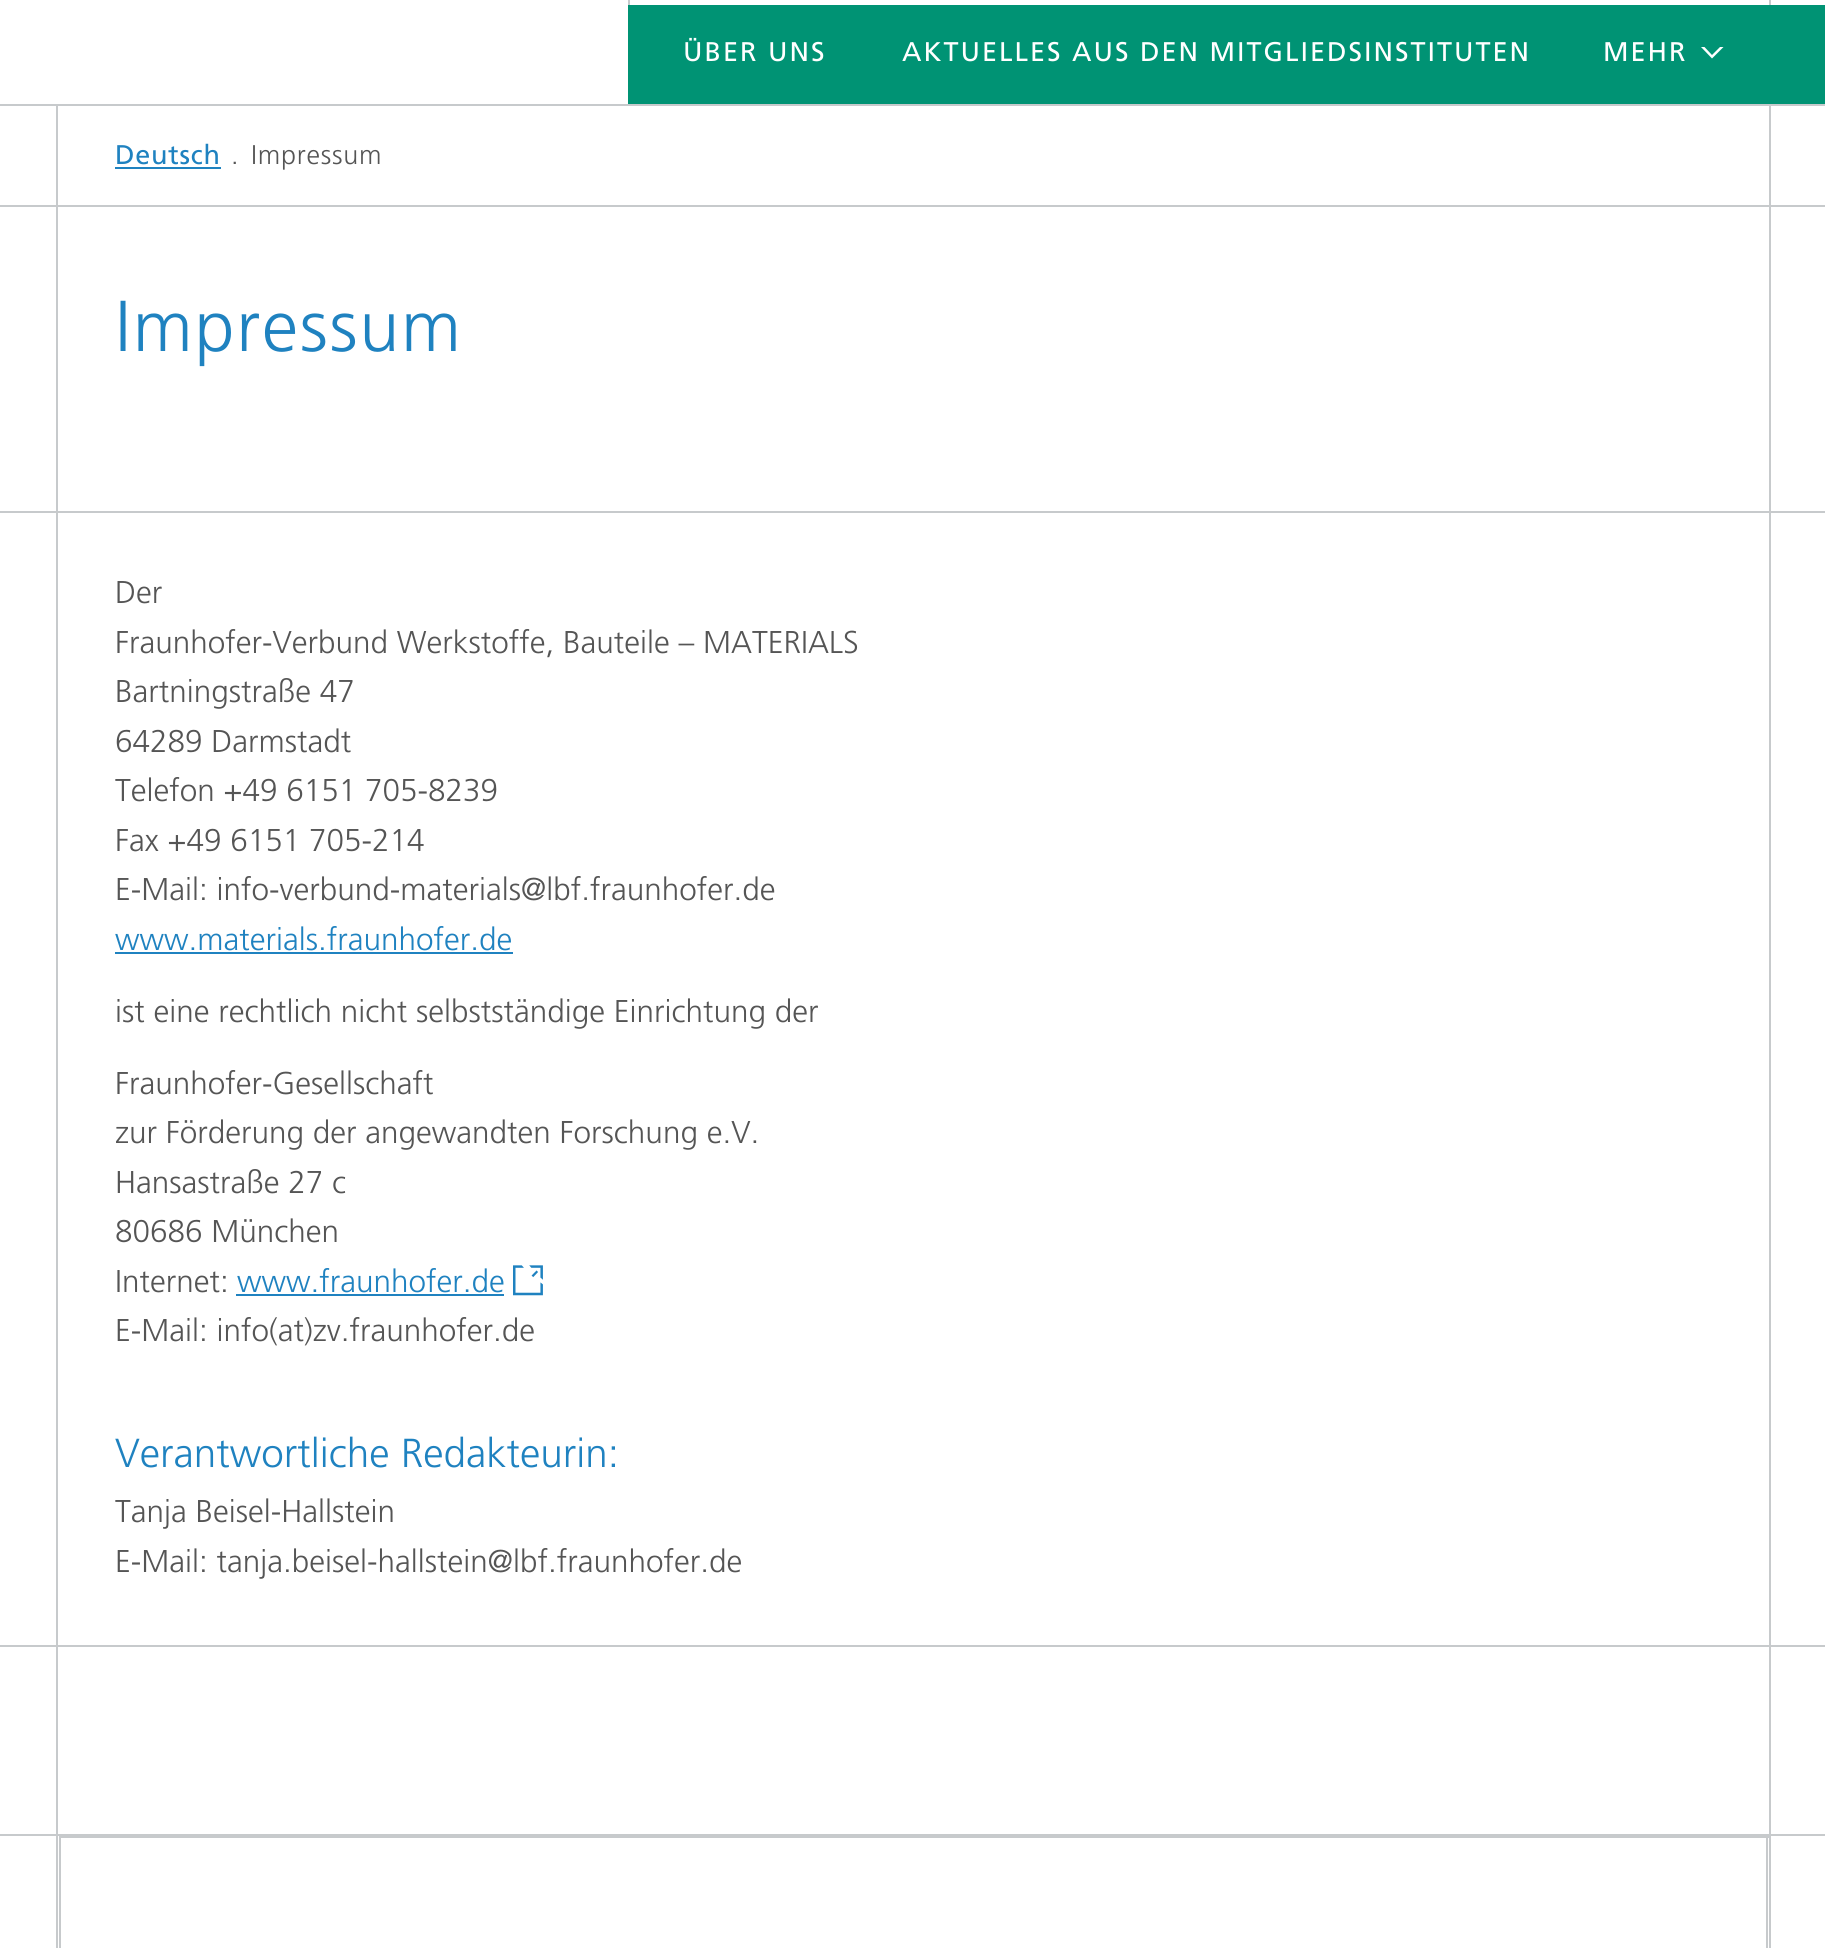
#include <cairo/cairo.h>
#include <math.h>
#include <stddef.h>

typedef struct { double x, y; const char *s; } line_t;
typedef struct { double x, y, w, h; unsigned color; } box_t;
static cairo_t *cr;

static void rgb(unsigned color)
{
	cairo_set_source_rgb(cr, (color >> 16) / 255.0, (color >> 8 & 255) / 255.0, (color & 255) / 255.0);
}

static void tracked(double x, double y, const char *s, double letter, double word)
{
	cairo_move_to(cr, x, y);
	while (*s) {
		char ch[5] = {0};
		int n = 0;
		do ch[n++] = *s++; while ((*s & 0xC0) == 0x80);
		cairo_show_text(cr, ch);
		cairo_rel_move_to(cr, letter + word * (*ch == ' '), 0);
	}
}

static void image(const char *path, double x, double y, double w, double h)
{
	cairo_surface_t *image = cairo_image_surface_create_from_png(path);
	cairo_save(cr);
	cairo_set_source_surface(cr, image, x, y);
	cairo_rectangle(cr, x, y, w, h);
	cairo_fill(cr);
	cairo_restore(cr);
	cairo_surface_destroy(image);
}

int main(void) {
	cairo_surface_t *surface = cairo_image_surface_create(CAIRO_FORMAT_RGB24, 1825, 1948);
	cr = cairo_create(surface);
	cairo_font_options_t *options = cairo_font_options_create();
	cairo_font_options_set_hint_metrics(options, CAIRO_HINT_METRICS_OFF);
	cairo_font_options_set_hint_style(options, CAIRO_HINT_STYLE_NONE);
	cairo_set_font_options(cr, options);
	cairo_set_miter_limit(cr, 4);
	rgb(0xffffff);
	cairo_paint(cr);
	{
		static const box_t items[] = {
			{1769, 0, 2, 5, 0xc7cacc},
			{628, 0, 2, 5, 0xc7cacc},
			{628, 5, 1197, 99, 0x009374},
		};
		for (size_t i = 0; i < sizeof items / sizeof *items; i++) {
			rgb(items[i].color);
			cairo_rectangle(cr, items[i].x, items[i].y, items[i].w, items[i].h);
			cairo_fill(cr);
		}
	}
	rgb(0xffffff);
	cairo_new_path(cr);
	cairo_move_to(cr, 1720, 47);
	cairo_line_to(cr, 1712, 55);
	cairo_line_to(cr, 1704.5, 47);
	cairo_line_to(cr, 1701, 47);
	cairo_line_to(cr, 1712, 58.5);
	cairo_line_to(cr, 1723.5, 47);
	cairo_close_path(cr);
	cairo_fill(cr);
	{
		static const box_t items[] = {
			{0, 104, 59, 2, 0xc7cacc},
			{56, 104, 1769, 2, 0xc7cacc},
			{0, 205, 59, 2, 0xc7cacc},
			{56, 205, 1769, 2, 0xc7cacc},
			{1769, 104, 2, 407, 0xc7cacc},
			{56, 104, 2, 407, 0xc7cacc},
			{115, 167, 106, 2, 0x1f82c0},
			{0, 511, 59, 2, 0xc7cacc},
			{56, 511, 1769, 2, 0xc7cacc},
			{1769, 511, 2, 1134, 0xc7cacc},
			{56, 511, 2, 1134, 0xc7cacc},
			{115, 952, 398, 2, 0x1f82c0},
			{236, 1294, 268, 2, 0x1f82c0},
		};
		for (size_t i = 0; i < sizeof items / sizeof *items; i++) {
			rgb(items[i].color);
			cairo_rectangle(cr, items[i].x, items[i].y, items[i].w, items[i].h);
			cairo_fill(cr);
		}
	}
	image("img/1.png", 513, 1265, 30, 31);
	{
		static const box_t items[] = {
			{0, 1645, 59, 2, 0xc7cacc},
			{0, 1834, 59, 2, 0xc7cacc},
			{56, 1645, 1769, 2, 0xc7cacc},
			{56, 1834, 1769, 2, 0xc7cacc},
			{1769, 1645, 2, 303, 0xc7cacc},
			{56, 1645, 2, 303, 0xc7cacc},
			{59, 1836, 1710, 2, 0xc7cacc},
			{1766, 1836, 2, 112, 0xc7cacc},
			{59, 1836, 2, 112, 0xc7cacc},
		};
		for (size_t i = 0; i < sizeof items / sizeof *items; i++) {
			rgb(items[i].color);
			cairo_rectangle(cr, items[i].x, items[i].y, items[i].w, items[i].h);
			cairo_fill(cr);
		}
	}
	cairo_select_font_face(cr, "Frutiger", CAIRO_FONT_SLANT_NORMAL, CAIRO_FONT_WEIGHT_NORMAL);
	cairo_set_font_size(cr, 27);
	rgb(0xffffff);
	{
		static const line_t items[] = {
			{683, 61, "ÜBER UNS"},
			{902, 61, "AKTUELLES AUS DEN MITGLIEDSINSTITUTEN"},
			{1603, 61, "MEHR"},
		};
		for (size_t i = 0; i < sizeof items / sizeof *items; i++) {
			tracked(items[i].x, items[i].y, items[i].s, 2, 0);
		}
	}
	rgb(0x1f82c0);
	tracked(115, 164, "Deutsch", 0.75, 0);
	cairo_select_font_face(cr, "Frutiger Light", CAIRO_FONT_SLANT_NORMAL, CAIRO_FONT_WEIGHT_NORMAL);
	rgb(0x555555);
	tracked(231, 164, ".", 0.75, 0);
	tracked(251, 164, "Impressum", 0.75, 0);
	cairo_set_font_size(cr, 72);
	rgb(0x1f82c0);
	tracked(115, 351, "Impressum", 1.75, 0);
	cairo_set_font_size(cr, 31.5);
	rgb(0x555555);
	{
		static const line_t items[] = {
			{115, 603, "Der"},
			{115, 653, "Fraunhofer-Verbund Werkstoffe, Bauteile – MATERIALS"},
			{115, 702, "Bartningstraße 47"},
			{115, 752, "64289 Darmstadt"},
			{115, 801, "Telefon +49 6151 705-8239"},
			{115, 851, "Fax +49 6151 705-214"},
			{115, 900, "E-Mail: info-verbund-materials@lbf.fraunhofer.de"},
		};
		for (size_t i = 0; i < sizeof items / sizeof *items; i++) {
			cairo_move_to(cr, items[i].x, items[i].y);
			cairo_show_text(cr, items[i].s);
		}
	}
	rgb(0x1f82c0);
	cairo_move_to(cr, 115, 950);
	cairo_show_text(cr, "www.materials.fraunhofer.de");
	rgb(0x555555);
	{
		static const line_t items[] = {
			{115, 1022, "ist eine rechtlich nicht selbstständige Einrichtung der"},
			{115, 1094, "Fraunhofer-Gesellschaft"},
			{115, 1143, "zur Förderung der angewandten Forschung e.V."},
			{115, 1193, "Hansastraße 27 c"},
			{115, 1242, "80686 München"},
			{115, 1292, "Internet:"},
		};
		for (size_t i = 0; i < sizeof items / sizeof *items; i++) {
			cairo_move_to(cr, items[i].x, items[i].y);
			cairo_show_text(cr, items[i].s);
		}
	}
	rgb(0x1f82c0);
	cairo_move_to(cr, 237, 1292);
	cairo_show_text(cr, "www.fraunhofer.de");
	rgb(0x555555);
	cairo_move_to(cr, 115, 1341);
	cairo_show_text(cr, "E-Mail: info(at)zv.fraunhofer.de");
	cairo_set_font_size(cr, 40.5);
	rgb(0x1f82c0);
	cairo_move_to(cr, 115, 1467);
	cairo_show_text(cr, "Verantwortliche Redakteurin:");
	cairo_set_font_size(cr, 31.5);
	rgb(0x555555);
	cairo_move_to(cr, 115, 1522);
	cairo_show_text(cr, "Tanja Beisel-Hallstein");
	cairo_move_to(cr, 115, 1572);
	cairo_show_text(cr, "E-Mail: tanja.beisel-hallstein@lbf.fraunhofer.de");
	cairo_surface_write_to_png(surface, "page.png");
	cairo_font_options_destroy(options);
	cairo_destroy(cr);
	cairo_surface_destroy(surface);
	return 0;
}
